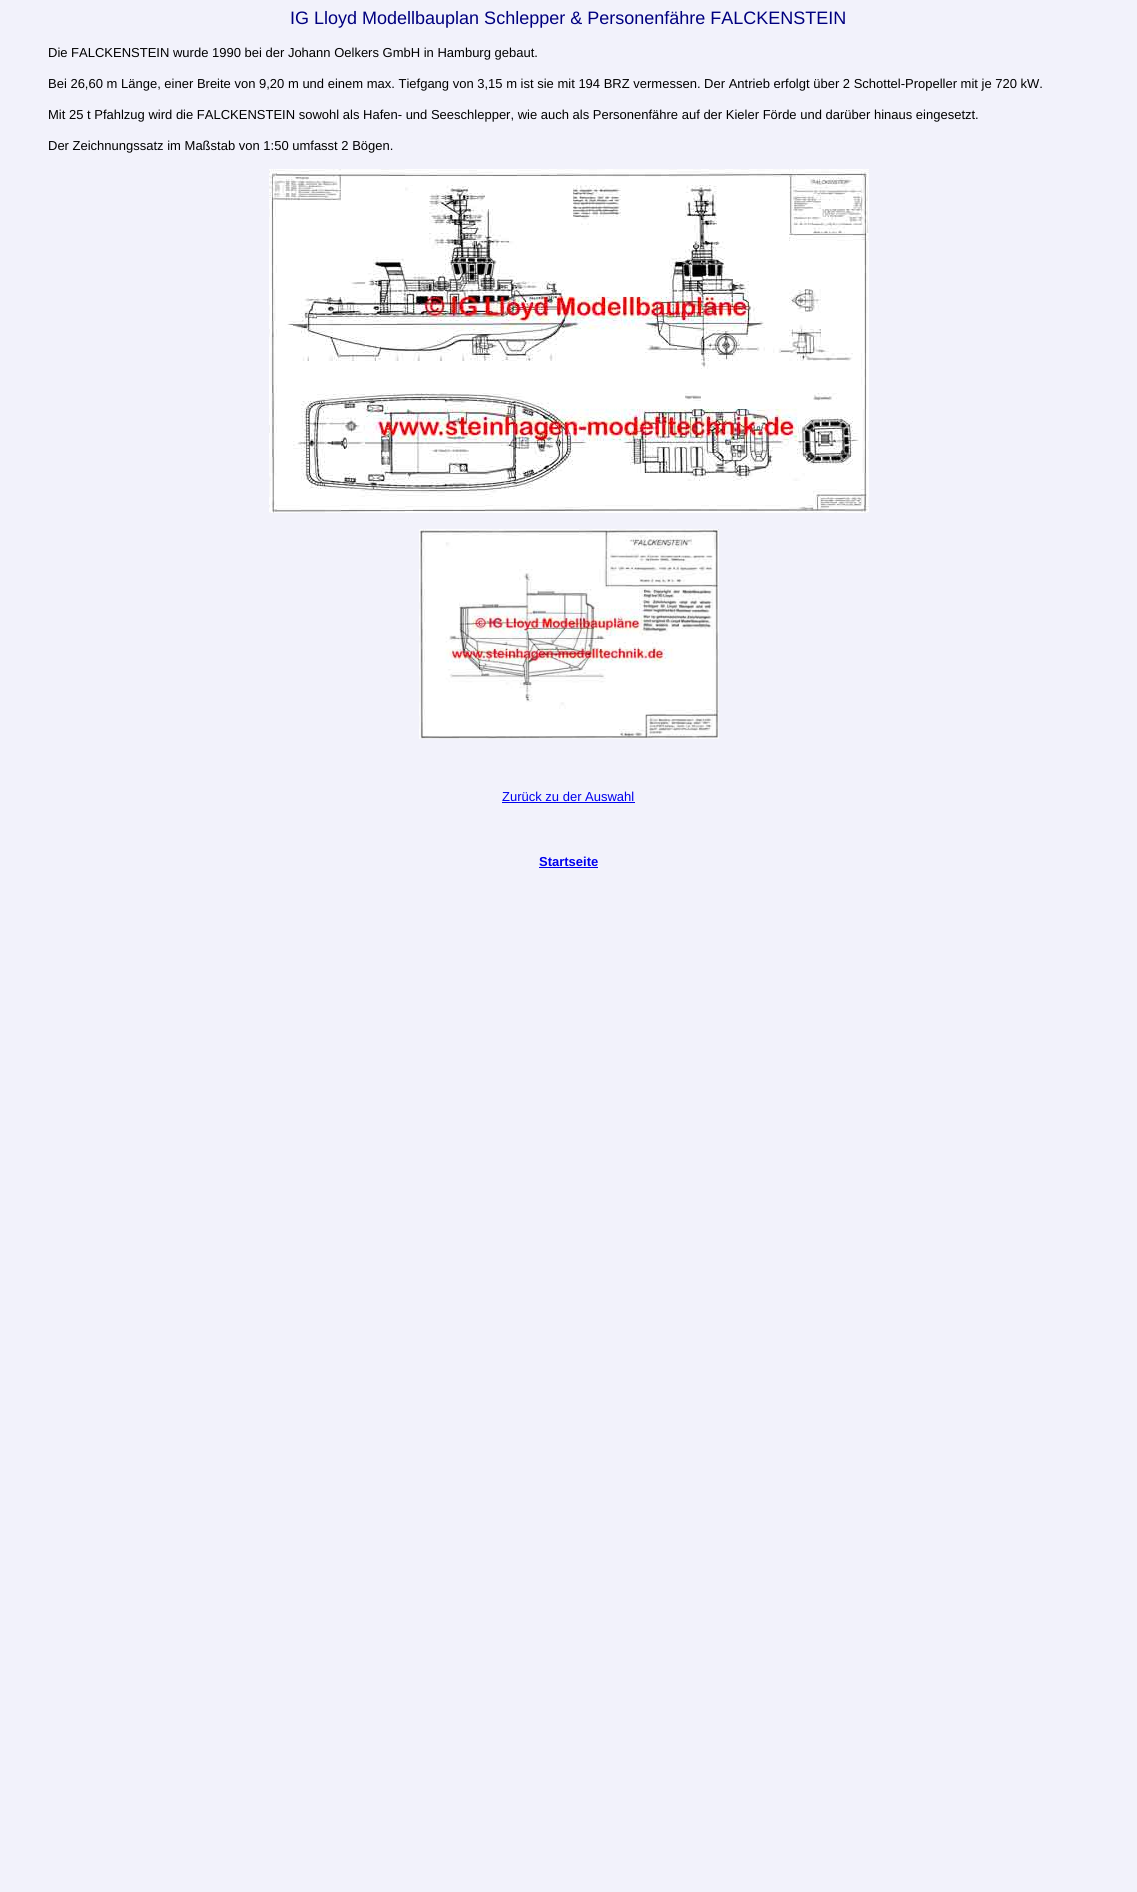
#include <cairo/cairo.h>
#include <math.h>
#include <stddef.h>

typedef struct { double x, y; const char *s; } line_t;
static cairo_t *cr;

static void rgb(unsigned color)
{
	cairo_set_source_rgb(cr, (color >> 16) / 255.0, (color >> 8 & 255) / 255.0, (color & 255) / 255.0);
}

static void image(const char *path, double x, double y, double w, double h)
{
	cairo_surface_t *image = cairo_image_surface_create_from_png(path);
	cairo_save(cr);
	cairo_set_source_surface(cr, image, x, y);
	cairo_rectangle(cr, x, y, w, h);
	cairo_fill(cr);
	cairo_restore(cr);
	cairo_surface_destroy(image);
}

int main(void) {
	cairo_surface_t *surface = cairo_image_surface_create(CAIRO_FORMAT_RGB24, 1137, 1892);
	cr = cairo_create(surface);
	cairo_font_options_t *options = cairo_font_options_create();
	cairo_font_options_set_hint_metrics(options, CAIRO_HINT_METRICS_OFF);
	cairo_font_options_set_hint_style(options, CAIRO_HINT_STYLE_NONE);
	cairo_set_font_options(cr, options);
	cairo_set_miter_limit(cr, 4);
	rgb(0xf2f2fb);
	cairo_paint(cr);
	image("img/1.png", 269, 169, 600, 344);
	image("img/2.png", 419, 529, 300, 210);
	rgb(0x0000ee);
	cairo_rectangle(cr, 502, 802, 133, 1);
	cairo_fill(cr);
	cairo_rectangle(cr, 539, 867, 59, 1);
	cairo_fill(cr);
	cairo_select_font_face(cr, "Liberation Sans", CAIRO_FONT_SLANT_NORMAL, CAIRO_FONT_WEIGHT_NORMAL);
	cairo_set_font_size(cr, 18);
	rgb(0x000080);
	cairo_move_to(cr, 290, 24);
	cairo_show_text(cr, "IG Lloyd Modellbauplan Schlepper & Personenfähre FALCKENSTEIN");
	cairo_set_font_size(cr, 13);
	rgb(0x000000);
	{
		static const line_t items[] = {
			{48, 57, "Die FALCKENSTEIN wurde 1990 bei der Johann Oelkers GmbH in Hamburg gebaut."},
			{48, 88, "Bei 26,60 m Länge, einer Breite von 9,20 m und einem max. Tiefgang von 3,15 m ist sie mit 194 BRZ vermessen. Der Antrieb erfolgt über 2 Schottel-Propeller mit je 720 kW."},
			{48, 119, "Mit 25 t Pfahlzug wird die FALCKENSTEIN sowohl als Hafen- und Seeschlepper, wie auch als Personenfähre auf der Kieler Förde und darüber hinaus eingesetzt."},
			{48, 150, "Der Zeichnungssatz im Maßstab von 1:50 umfasst 2 Bögen."},
		};
		for (size_t i = 0; i < sizeof items / sizeof *items; i++) {
			cairo_move_to(cr, items[i].x, items[i].y);
			cairo_show_text(cr, items[i].s);
		}
	}
	rgb(0x0000ee);
	cairo_move_to(cr, 502, 801);
	cairo_show_text(cr, "Zurück zu der Auswahl");
	cairo_select_font_face(cr, "Liberation Sans", CAIRO_FONT_SLANT_NORMAL, CAIRO_FONT_WEIGHT_BOLD);
	cairo_move_to(cr, 539, 866);
	cairo_show_text(cr, "Startseite");
	cairo_surface_write_to_png(surface, "page.png");
	cairo_font_options_destroy(options);
	cairo_destroy(cr);
	cairo_surface_destroy(surface);
	return 0;
}
